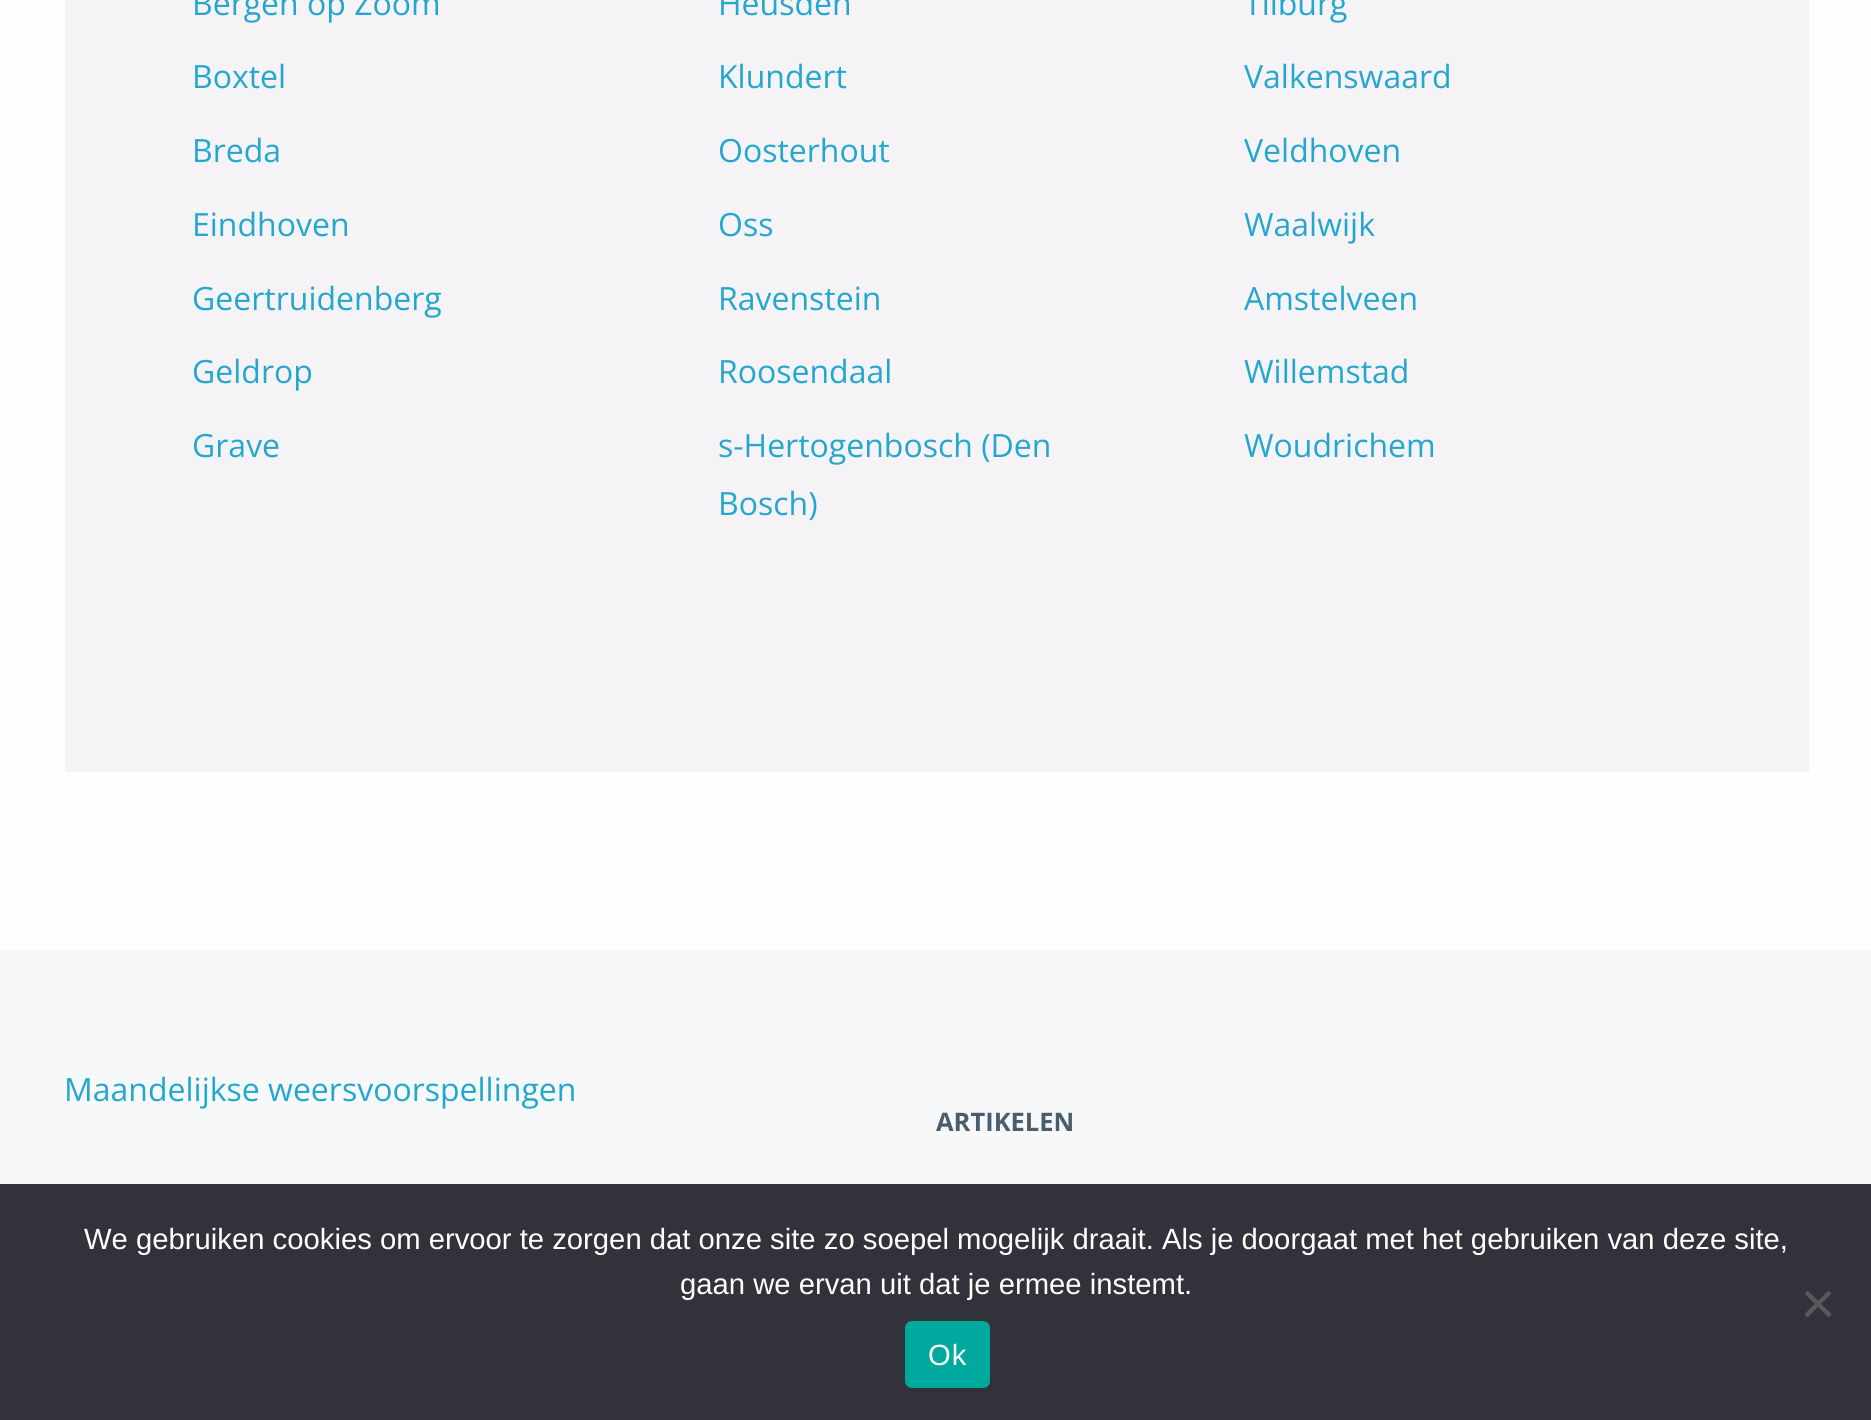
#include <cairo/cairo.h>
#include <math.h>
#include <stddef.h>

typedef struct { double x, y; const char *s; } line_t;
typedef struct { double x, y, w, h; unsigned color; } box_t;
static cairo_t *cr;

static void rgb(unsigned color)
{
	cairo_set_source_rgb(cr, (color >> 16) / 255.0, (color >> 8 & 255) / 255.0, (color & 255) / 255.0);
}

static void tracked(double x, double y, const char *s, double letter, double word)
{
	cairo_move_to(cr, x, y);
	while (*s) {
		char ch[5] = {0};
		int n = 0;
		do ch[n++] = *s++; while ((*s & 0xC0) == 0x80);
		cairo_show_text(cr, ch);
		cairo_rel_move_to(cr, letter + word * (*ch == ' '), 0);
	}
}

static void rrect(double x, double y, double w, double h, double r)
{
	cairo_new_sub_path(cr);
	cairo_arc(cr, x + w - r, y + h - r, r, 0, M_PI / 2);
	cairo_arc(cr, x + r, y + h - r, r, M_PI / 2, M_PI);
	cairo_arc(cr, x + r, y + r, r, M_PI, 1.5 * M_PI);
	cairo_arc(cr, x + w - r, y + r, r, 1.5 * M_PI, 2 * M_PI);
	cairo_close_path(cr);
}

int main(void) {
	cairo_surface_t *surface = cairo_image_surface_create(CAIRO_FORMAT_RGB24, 1871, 1420);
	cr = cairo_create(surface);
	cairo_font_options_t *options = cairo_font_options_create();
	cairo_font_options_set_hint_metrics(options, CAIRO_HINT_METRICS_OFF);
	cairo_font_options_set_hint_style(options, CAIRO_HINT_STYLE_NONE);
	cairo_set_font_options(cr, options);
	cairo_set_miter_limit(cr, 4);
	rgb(0xfffdff);
	cairo_paint(cr);
	{
		static const box_t items[] = {
			{65, 0, 1744, 772, 0xf5f3f5},
			{0, 950, 1871, 234, 0xf7f8f9},
			{0, 1184, 1871, 236, 0x32323a},
		};
		for (size_t i = 0; i < sizeof items / sizeof *items; i++) {
			rgb(items[i].color);
			cairo_rectangle(cr, items[i].x, items[i].y, items[i].w, items[i].h);
			cairo_fill(cr);
		}
	}
	rgb(0x59595d);
	cairo_new_path(cr);
	cairo_move_to(cr, 1828.5, 1290.5);
	cairo_line_to(cr, 1831.5, 1293.5);
	cairo_line_to(cr, 1807.5, 1317.5);
	cairo_line_to(cr, 1804.5, 1314);
	cairo_close_path(cr);
	cairo_fill(cr);
	cairo_new_path(cr);
	cairo_move_to(cr, 1804.5, 1293.5);
	cairo_line_to(cr, 1807.5, 1290.5);
	cairo_line_to(cr, 1831.5, 1314);
	cairo_line_to(cr, 1828.5, 1317.5);
	cairo_close_path(cr);
	cairo_fill(cr);
	rgb(0x00a99d);
	rrect(905, 1321, 85, 67, 7);
	cairo_fill(cr);
	cairo_select_font_face(cr, "Open Sans", CAIRO_FONT_SLANT_NORMAL, CAIRO_FONT_WEIGHT_NORMAL);
	cairo_set_font_size(cr, 32);
	rgb(0x24a7cf);
	{
		static const line_t items[] = {
			{192, 15, "Bergen op Zoom"},
			{192, 88, "Boxtel"},
			{192, 162, "Breda"},
			{192, 236, "Eindhoven"},
			{192, 310, "Geertruidenberg"},
			{192, 383, "Geldrop"},
			{192, 457, "Grave"},
			{718, 15, "Heusden"},
			{718, 88, "Klundert"},
			{718, 162, "Oosterhout"},
			{718, 236, "Oss"},
			{718, 310, "Ravenstein"},
			{718, 383, "Roosendaal"},
			{718, 457, "s-Hertogenbosch (Den"},
			{718, 515, "Bosch)"},
			{1244, 15, "Tilburg"},
			{1244, 88, "Valkenswaard"},
			{1244, 162, "Veldhoven"},
			{1244, 236, "Waalwijk"},
			{1244, 310, "Amstelveen"},
			{1244, 383, "Willemstad"},
			{1244, 457, "Woudrichem"},
			{64, 1101, "Maandelijkse weersvoorspellingen"},
		};
		for (size_t i = 0; i < sizeof items / sizeof *items; i++) {
			cairo_move_to(cr, items[i].x, items[i].y);
			cairo_show_text(cr, items[i].s);
		}
	}
	cairo_select_font_face(cr, "Open Sans", CAIRO_FONT_SLANT_NORMAL, CAIRO_FONT_WEIGHT_BOLD);
	cairo_set_font_size(cr, 25.5);
	rgb(0x495d6d);
	cairo_move_to(cr, 936, 1131);
	cairo_show_text(cr, "ARTIKELEN");
	cairo_select_font_face(cr, "Liberation Sans", CAIRO_FONT_SLANT_NORMAL, CAIRO_FONT_WEIGHT_NORMAL);
	cairo_set_font_size(cr, 29.25);
	rgb(0xffffff);
	cairo_move_to(cr, 84, 1249);
	cairo_show_text(cr, "We gebruiken cookies om ervoor te zorgen dat onze site zo soepel mogelijk draait. Als je doorgaat met het gebruiken van deze site,");
	cairo_move_to(cr, 680, 1294);
	cairo_show_text(cr, "gaan we ervan uit dat je ermee instemt.");
	tracked(928, 1365, "Ok", 1, 0);
	cairo_surface_write_to_png(surface, "page.png");
	cairo_font_options_destroy(options);
	cairo_destroy(cr);
	cairo_surface_destroy(surface);
	return 0;
}
